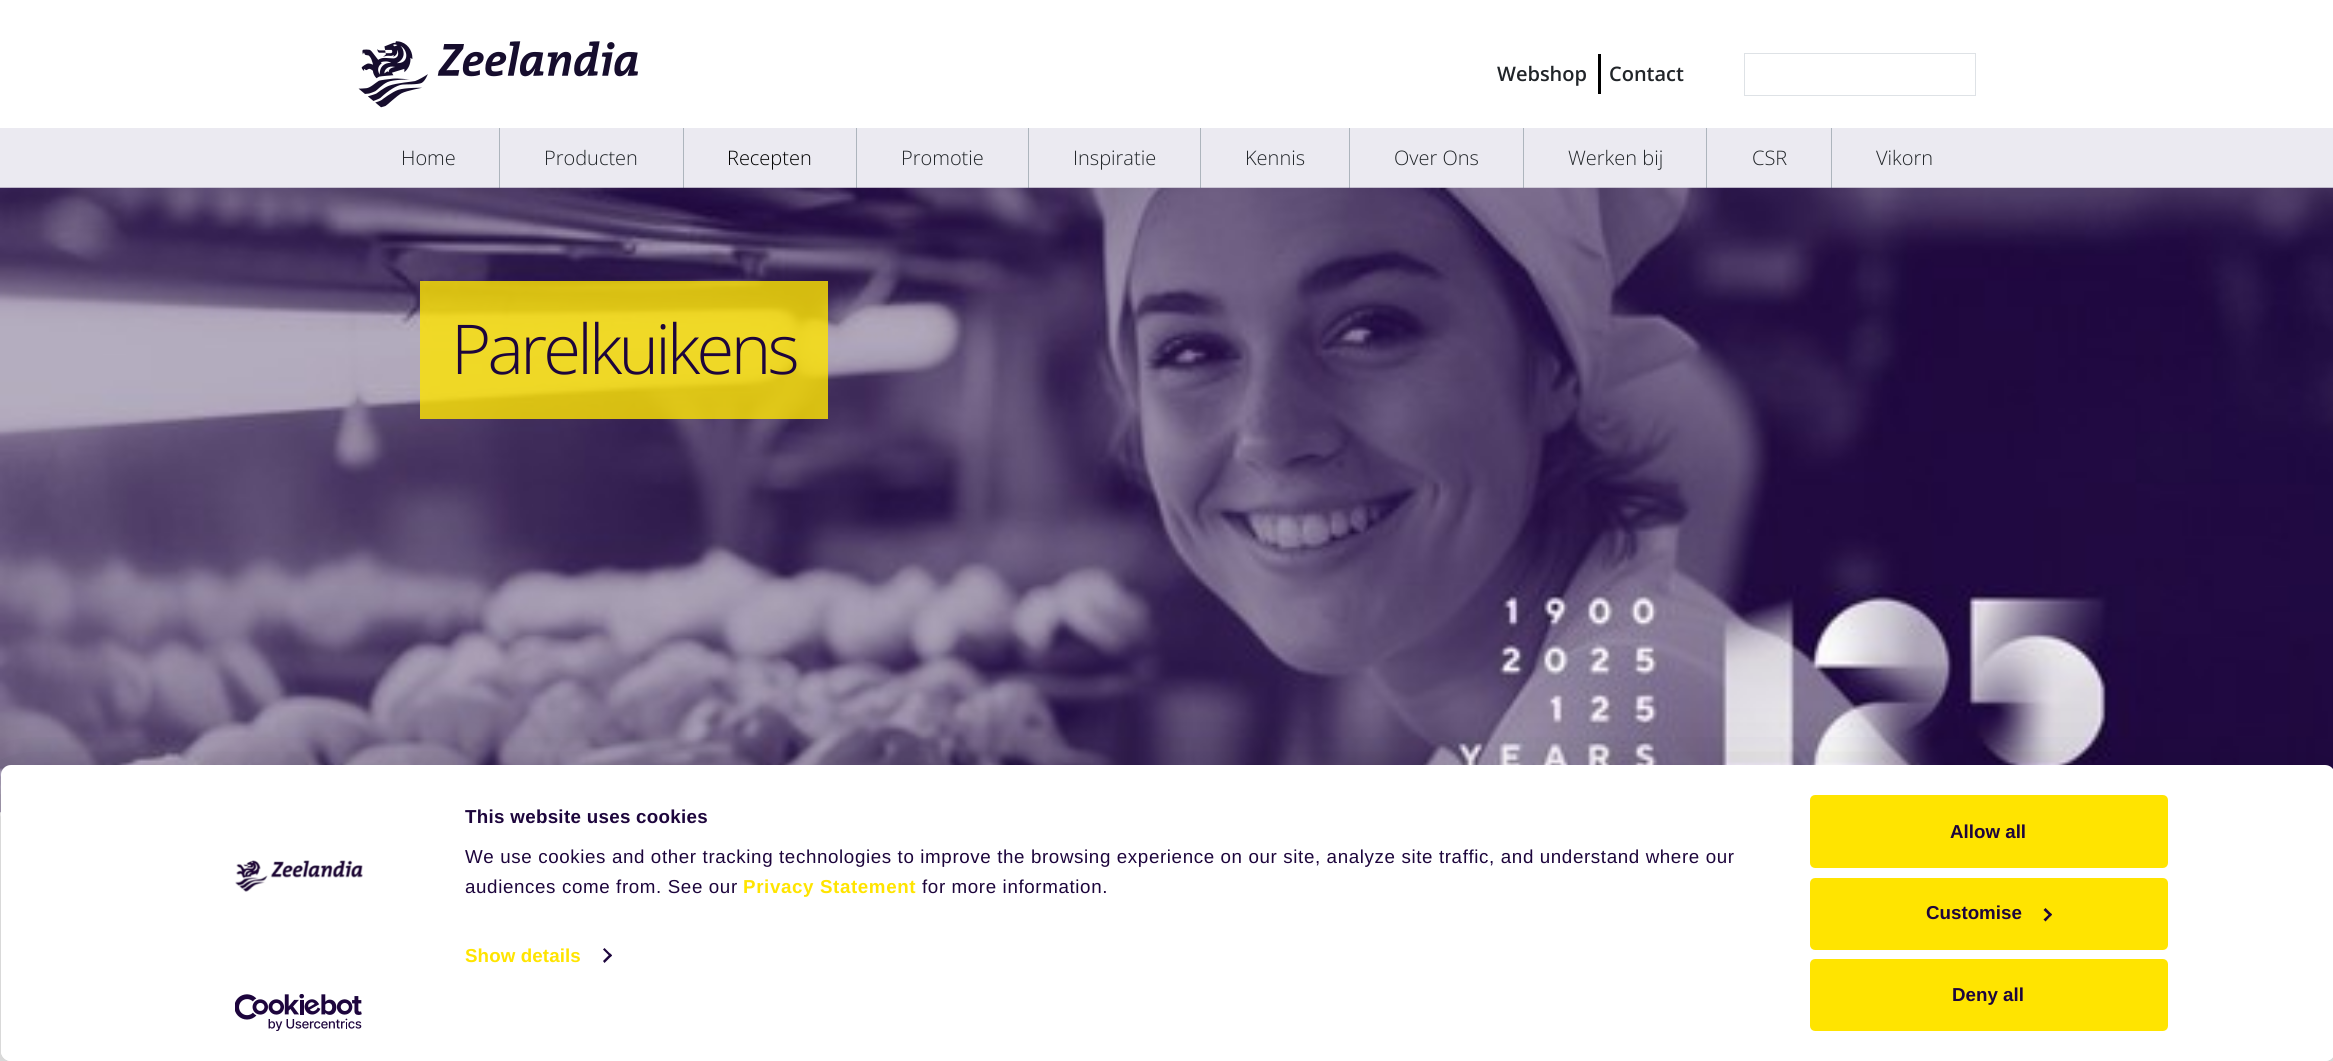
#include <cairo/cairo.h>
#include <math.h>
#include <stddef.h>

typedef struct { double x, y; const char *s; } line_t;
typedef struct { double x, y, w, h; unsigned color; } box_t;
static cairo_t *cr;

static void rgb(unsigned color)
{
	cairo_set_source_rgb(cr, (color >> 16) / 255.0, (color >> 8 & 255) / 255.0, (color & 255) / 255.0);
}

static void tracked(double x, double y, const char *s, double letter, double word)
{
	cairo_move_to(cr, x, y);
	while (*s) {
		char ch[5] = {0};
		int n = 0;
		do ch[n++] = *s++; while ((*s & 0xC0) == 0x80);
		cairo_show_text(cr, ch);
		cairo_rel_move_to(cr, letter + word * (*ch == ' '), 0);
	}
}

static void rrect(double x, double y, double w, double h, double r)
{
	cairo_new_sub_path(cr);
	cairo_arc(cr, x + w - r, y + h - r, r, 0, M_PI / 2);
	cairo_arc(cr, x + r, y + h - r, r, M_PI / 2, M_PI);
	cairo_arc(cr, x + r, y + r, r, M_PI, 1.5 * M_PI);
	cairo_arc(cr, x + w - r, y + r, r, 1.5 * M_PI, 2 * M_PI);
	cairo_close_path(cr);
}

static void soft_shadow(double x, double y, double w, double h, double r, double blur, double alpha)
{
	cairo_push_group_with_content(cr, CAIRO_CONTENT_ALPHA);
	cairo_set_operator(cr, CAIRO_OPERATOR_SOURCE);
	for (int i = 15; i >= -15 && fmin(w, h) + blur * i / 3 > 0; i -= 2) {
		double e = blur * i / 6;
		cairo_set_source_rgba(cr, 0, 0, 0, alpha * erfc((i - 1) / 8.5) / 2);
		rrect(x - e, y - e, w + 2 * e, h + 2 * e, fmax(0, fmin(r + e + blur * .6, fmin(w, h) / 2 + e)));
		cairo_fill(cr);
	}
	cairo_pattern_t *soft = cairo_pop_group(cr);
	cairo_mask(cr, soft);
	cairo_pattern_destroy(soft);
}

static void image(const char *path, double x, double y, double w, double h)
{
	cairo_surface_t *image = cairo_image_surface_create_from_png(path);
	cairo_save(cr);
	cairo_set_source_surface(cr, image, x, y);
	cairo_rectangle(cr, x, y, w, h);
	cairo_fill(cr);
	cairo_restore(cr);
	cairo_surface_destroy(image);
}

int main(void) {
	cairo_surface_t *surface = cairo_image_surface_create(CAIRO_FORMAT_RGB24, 2333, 1061);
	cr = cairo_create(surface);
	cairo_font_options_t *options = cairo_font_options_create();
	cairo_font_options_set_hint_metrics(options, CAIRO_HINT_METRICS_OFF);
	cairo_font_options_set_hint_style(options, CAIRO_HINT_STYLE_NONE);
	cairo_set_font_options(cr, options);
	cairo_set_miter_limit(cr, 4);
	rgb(0xffffff);
	cairo_paint(cr);
	image("img/1.png", 358, 41, 280, 67);
	rgb(0x000000);
	cairo_rectangle(cr, 1598, 54, 3, 40);
	cairo_fill(cr);
	cairo_rectangle(cr, 1744.5, 53.5, 231, 42);
	rgb(0xdee2e6);
	cairo_set_line_width(cr, 1);
	cairo_stroke(cr);
	{
		static const box_t items[] = {
			{0, 128, 2333, 60, 0xebeaf1},
			{499, 128, 1, 60, 0xadb5bd},
			{683, 128, 1, 60, 0xadb5bd},
			{856, 128, 1, 60, 0xadb5bd},
			{1028, 128, 1, 60, 0xadb5bd},
			{1200, 128, 1, 60, 0xadb5bd},
			{1349, 128, 1, 60, 0xadb5bd},
			{1523, 128, 1, 60, 0xadb5bd},
			{1706, 128, 1, 60, 0xadb5bd},
			{1831, 128, 1, 60, 0xadb5bd},
		};
		for (size_t i = 0; i < sizeof items / sizeof *items; i++) {
			rgb(items[i].color);
			cairo_rectangle(cr, items[i].x, items[i].y, items[i].w, items[i].h);
			cairo_fill(cr);
		}
	}
	image("img/2.png", 0, 187, 2333, 626);
	cairo_set_source_rgba(cr, 1, 0.894, 0.008, 0.8);
	cairo_rectangle(cr, 420, 281, 408, 138);
	cairo_fill(cr);
	cairo_save(cr);
	cairo_set_fill_rule(cr, CAIRO_FILL_RULE_EVEN_ODD);
	cairo_new_path(cr);
	cairo_move_to(cr, 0, 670);
	cairo_line_to(cr, 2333, 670);
	cairo_line_to(cr, 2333, 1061);
	cairo_line_to(cr, 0, 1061);
	cairo_close_path(cr);
	cairo_move_to(cr, 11, 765);
	cairo_line_to(cr, 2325, 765);
	cairo_curve_to(cr, 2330.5, 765, 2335, 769.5, 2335, 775);
	cairo_line_to(cr, 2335, 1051);
	cairo_curve_to(cr, 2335, 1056.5, 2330.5, 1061, 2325, 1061);
	cairo_line_to(cr, 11, 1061);
	cairo_curve_to(cr, 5.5, 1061, 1, 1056.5, 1, 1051);
	cairo_line_to(cr, 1, 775);
	cairo_curve_to(cr, 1, 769.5, 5.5, 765, 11, 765);
	cairo_close_path(cr);
	cairo_clip(cr);
	rgb(0x000000);
	soft_shadow(1, 803, 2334, 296, 10, 44, 0.3);
	cairo_restore(cr);
	rgb(0xffffff);
	rrect(1, 765, 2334, 296, 10);
	cairo_fill(cr);
	image("img/3.png", 235, 860, 128, 32);
	image("img/4.png", 235, 994, 127, 37);
	rgb(0x1d053d);
	cairo_new_path(cr);
	cairo_move_to(cr, 604.5, 948);
	cairo_line_to(cr, 612, 955.5);
	cairo_line_to(cr, 610.5, 957);
	cairo_line_to(cr, 603, 949.5);
	cairo_close_path(cr);
	cairo_fill(cr);
	cairo_new_path(cr);
	cairo_move_to(cr, 610.5, 953.5);
	cairo_line_to(cr, 612, 955.5);
	cairo_line_to(cr, 604.5, 963);
	cairo_line_to(cr, 603, 961);
	cairo_close_path(cr);
	cairo_fill(cr);
	rgb(0xffe400);
	rrect(1811.5, 796.5, 355, 70, 3.5);
	cairo_fill_preserve(cr);
	cairo_set_line_width(cr, 3);
	cairo_stroke(cr);
	rrect(1811.5, 879.5, 355, 69, 3.5);
	cairo_fill_preserve(cr);
	cairo_stroke(cr);
	rgb(0x1d053d);
	cairo_new_path(cr);
	cairo_move_to(cr, 2045.5, 908);
	cairo_line_to(cr, 2052, 914.5);
	cairo_line_to(cr, 2050.5, 916.5);
	cairo_line_to(cr, 2043.5, 910);
	cairo_close_path(cr);
	cairo_fill(cr);
	cairo_new_path(cr);
	cairo_move_to(cr, 2050.5, 913);
	cairo_line_to(cr, 2052, 914.5);
	cairo_line_to(cr, 2045.5, 921.5);
	cairo_line_to(cr, 2043.5, 919.5);
	cairo_close_path(cr);
	cairo_fill(cr);
	rgb(0xffe400);
	rrect(1811.5, 960.5, 355, 69, 3.5);
	cairo_fill_preserve(cr);
	cairo_stroke(cr);
	cairo_select_font_face(cr, "Open Sans SemiBold", CAIRO_FONT_SLANT_NORMAL, CAIRO_FONT_WEIGHT_NORMAL);
	cairo_set_font_size(cr, 20);
	rgb(0x212529);
	cairo_move_to(cr, 1497, 81);
	cairo_show_text(cr, "Webshop");
	cairo_move_to(cr, 1609, 81);
	cairo_show_text(cr, "Contact");
	cairo_select_font_face(cr, "Open Sans Light", CAIRO_FONT_SLANT_NORMAL, CAIRO_FONT_WEIGHT_NORMAL);
	cairo_move_to(cr, 401, 165);
	cairo_show_text(cr, "Home");
	cairo_move_to(cr, 544, 165);
	cairo_show_text(cr, "Producten");
	rgb(0x000000);
	cairo_move_to(cr, 727, 165);
	cairo_show_text(cr, "Recepten");
	rgb(0x212529);
	{
		static const line_t items[] = {
			{901, 165, "Promotie"},
			{1073, 165, "Inspiratie"},
			{1245, 165, "Kennis"},
			{1394, 165, "Over Ons"},
			{1568, 165, "Werken bij"},
			{1752, 165, "CSR"},
			{1876, 165, "Vikorn"},
		};
		for (size_t i = 0; i < sizeof items / sizeof *items; i++) {
			cairo_move_to(cr, items[i].x, items[i].y);
			cairo_show_text(cr, items[i].s);
		}
	}
	cairo_set_font_size(cr, 68.75);
	rgb(0x1d053c);
	tracked(451, 374, "Parelkuikens", -3.75, 0);
	cairo_select_font_face(cr, "Liberation Sans", CAIRO_FONT_SLANT_NORMAL, CAIRO_FONT_WEIGHT_BOLD);
	cairo_set_font_size(cr, 18.75);
	tracked(465, 823, "This website uses cookies", 0.3, 0);
	cairo_select_font_face(cr, "Liberation Sans", CAIRO_FONT_SLANT_NORMAL, CAIRO_FONT_WEIGHT_NORMAL);
	tracked(465, 863, "We use cookies and other tracking technologies to improve the browsing experience on our site, analyze site traffic, and understand where our", 0.62, 0);
	tracked(465, 893, "audiences come from. See our", 0.62, 0);
	cairo_select_font_face(cr, "Liberation Sans", CAIRO_FONT_SLANT_NORMAL, CAIRO_FONT_WEIGHT_BOLD);
	rgb(0xffe400);
	tracked(743, 893, "Privacy Statement", 0.62, 0);
	cairo_select_font_face(cr, "Liberation Sans", CAIRO_FONT_SLANT_NORMAL, CAIRO_FONT_WEIGHT_NORMAL);
	rgb(0x1d053c);
	tracked(922, 893, "for more information.", 0.62, 0);
	cairo_select_font_face(cr, "Liberation Sans", CAIRO_FONT_SLANT_NORMAL, CAIRO_FONT_WEIGHT_BOLD);
	rgb(0xffe400);
	tracked(465, 962, "Show details", 0.1, 0);
	rgb(0x1d053c);
	{
		static const line_t items[] = {
			{1950, 838, "Allow all"},
			{1926, 919, "Customise"},
			{1952, 1001, "Deny all"},
		};
		for (size_t i = 0; i < sizeof items / sizeof *items; i++) {
			cairo_move_to(cr, items[i].x, items[i].y);
			cairo_show_text(cr, items[i].s);
		}
	}
	cairo_surface_write_to_png(surface, "page.png");
	cairo_font_options_destroy(options);
	cairo_destroy(cr);
	cairo_surface_destroy(surface);
	return 0;
}
